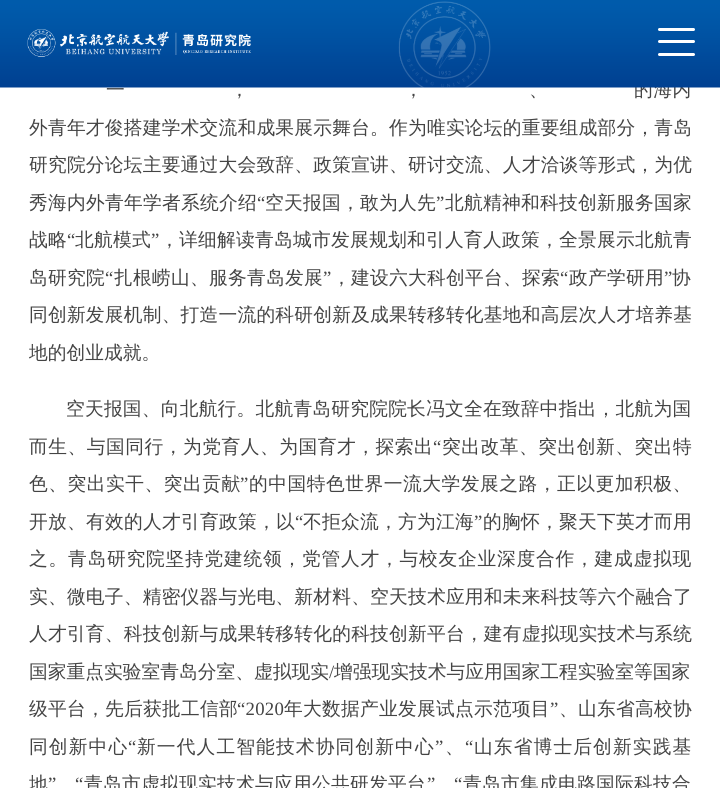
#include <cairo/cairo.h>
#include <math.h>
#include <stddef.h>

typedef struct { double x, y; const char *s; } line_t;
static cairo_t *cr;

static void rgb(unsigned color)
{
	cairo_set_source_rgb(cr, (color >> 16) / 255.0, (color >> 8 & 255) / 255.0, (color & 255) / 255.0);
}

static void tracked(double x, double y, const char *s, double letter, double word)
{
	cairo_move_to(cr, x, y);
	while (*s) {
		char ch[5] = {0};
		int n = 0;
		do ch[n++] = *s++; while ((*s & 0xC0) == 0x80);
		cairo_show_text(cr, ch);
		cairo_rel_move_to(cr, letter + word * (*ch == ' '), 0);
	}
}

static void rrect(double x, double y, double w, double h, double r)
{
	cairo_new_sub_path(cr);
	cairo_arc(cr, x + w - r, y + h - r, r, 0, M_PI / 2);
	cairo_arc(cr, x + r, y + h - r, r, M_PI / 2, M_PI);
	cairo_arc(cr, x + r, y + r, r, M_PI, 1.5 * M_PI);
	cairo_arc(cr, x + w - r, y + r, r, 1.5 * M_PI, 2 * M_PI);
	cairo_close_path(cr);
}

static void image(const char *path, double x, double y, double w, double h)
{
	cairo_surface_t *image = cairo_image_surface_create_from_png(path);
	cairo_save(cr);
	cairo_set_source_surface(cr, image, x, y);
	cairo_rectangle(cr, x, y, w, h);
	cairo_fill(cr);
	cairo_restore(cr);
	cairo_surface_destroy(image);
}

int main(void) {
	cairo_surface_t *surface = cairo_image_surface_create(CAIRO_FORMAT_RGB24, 720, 788);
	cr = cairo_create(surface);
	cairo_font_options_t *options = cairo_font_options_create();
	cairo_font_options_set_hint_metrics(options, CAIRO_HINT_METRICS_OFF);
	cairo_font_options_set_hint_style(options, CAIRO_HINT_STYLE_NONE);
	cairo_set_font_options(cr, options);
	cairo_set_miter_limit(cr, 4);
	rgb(0xffffff);
	cairo_paint(cr);
	cairo_select_font_face(cr, "WenQuanYi Zen Hei Medium", CAIRO_FONT_SLANT_NORMAL, CAIRO_FONT_WEIGHT_NORMAL);
	cairo_set_font_size(cr, 18.75);
	rgb(0x444444);
	tracked(106, 96, "一", 0.5, 0);
	tracked(634, 96, "的海内", 0.5, 0);
	image("img/1.png", 0, 0, 720, 88);
	rgb(0xffffff);
	rrect(658, 53, 37, 3, 1.5);
	cairo_fill(cr);
	rrect(658, 40, 37, 3, 1.5);
	cairo_fill(cr);
	rrect(658, 28, 37, 3, 1.5);
	cairo_fill(cr);
	image("img/3.png", 27, 29, 224, 28);
	image("img/2.png", 398, 1, 93, 87);
	rgb(0x444444);
	{
		static const line_t items[] = {
			{230, 96, "，"},
			{404, 96, "，"},
			{529, 96, "、"},
		};
		for (size_t i = 0; i < sizeof items / sizeof *items; i++) {
			tracked(items[i].x, items[i].y, items[i].s, 0.5, 0);
		}
	}
	tracked(29, 134, "外青年才俊搭建学术交流和成果展示舞台。作为唯实论坛的重要组成部分，青岛", 0.2, 0);
	tracked(29, 171, "研究院分论坛主要通过大会致辞、政策宣讲、研讨交流、人才洽谈等形式，为优", 0.2, 0);
	tracked(29, 209, "秀海内外青年学者系统介绍", 0.25, 0);
	cairo_select_font_face(cr, "Liberation Serif", CAIRO_FONT_SLANT_NORMAL, CAIRO_FONT_WEIGHT_NORMAL);
	tracked(257, 209, "“", 0.25, 0);
	cairo_select_font_face(cr, "WenQuanYi Zen Hei Medium", CAIRO_FONT_SLANT_NORMAL, CAIRO_FONT_WEIGHT_NORMAL);
	tracked(265, 209, "空天报国，敢为人先", 0.25, 0);
	cairo_select_font_face(cr, "Liberation Serif", CAIRO_FONT_SLANT_NORMAL, CAIRO_FONT_WEIGHT_NORMAL);
	tracked(436, 209, "”", 0.25, 0);
	cairo_select_font_face(cr, "WenQuanYi Zen Hei Medium", CAIRO_FONT_SLANT_NORMAL, CAIRO_FONT_WEIGHT_NORMAL);
	tracked(445, 209, "北航精神和科技创新服务国家", 0.25, 0);
	tracked(29, 246, "战略", 0.25, 0);
	cairo_select_font_face(cr, "Liberation Serif", CAIRO_FONT_SLANT_NORMAL, CAIRO_FONT_WEIGHT_NORMAL);
	tracked(67, 246, "“", 0.25, 0);
	cairo_select_font_face(cr, "WenQuanYi Zen Hei Medium", CAIRO_FONT_SLANT_NORMAL, CAIRO_FONT_WEIGHT_NORMAL);
	tracked(75, 246, "北航模式", 0.25, 0);
	cairo_select_font_face(cr, "Liberation Serif", CAIRO_FONT_SLANT_NORMAL, CAIRO_FONT_WEIGHT_NORMAL);
	tracked(151, 246, "”", 0.25, 0);
	cairo_select_font_face(cr, "WenQuanYi Zen Hei Medium", CAIRO_FONT_SLANT_NORMAL, CAIRO_FONT_WEIGHT_NORMAL);
	tracked(160, 246, "，详细解读青岛城市发展规划和引人育人政策，全景展示北航青", 0.25, 0);
	tracked(29, 284, "岛研究院", 0.25, 0);
	cairo_select_font_face(cr, "Liberation Serif", CAIRO_FONT_SLANT_NORMAL, CAIRO_FONT_WEIGHT_NORMAL);
	tracked(105, 284, "“", 0.25, 0);
	cairo_select_font_face(cr, "WenQuanYi Zen Hei Medium", CAIRO_FONT_SLANT_NORMAL, CAIRO_FONT_WEIGHT_NORMAL);
	tracked(114, 284, "扎根崂山、服务青岛发展", 0.25, 0);
	cairo_select_font_face(cr, "Liberation Serif", CAIRO_FONT_SLANT_NORMAL, CAIRO_FONT_WEIGHT_NORMAL);
	tracked(323, 284, "”", 0.25, 0);
	cairo_select_font_face(cr, "WenQuanYi Zen Hei Medium", CAIRO_FONT_SLANT_NORMAL, CAIRO_FONT_WEIGHT_NORMAL);
	tracked(332, 284, "，建设六大科创平台、探索", 0.25, 0);
	cairo_select_font_face(cr, "Liberation Serif", CAIRO_FONT_SLANT_NORMAL, CAIRO_FONT_WEIGHT_NORMAL);
	tracked(560, 284, "“", 0.25, 0);
	cairo_select_font_face(cr, "WenQuanYi Zen Hei Medium", CAIRO_FONT_SLANT_NORMAL, CAIRO_FONT_WEIGHT_NORMAL);
	tracked(569, 284, "政产学研用", 0.25, 0);
	cairo_select_font_face(cr, "Liberation Serif", CAIRO_FONT_SLANT_NORMAL, CAIRO_FONT_WEIGHT_NORMAL);
	tracked(664, 284, "”", 0.25, 0);
	cairo_select_font_face(cr, "WenQuanYi Zen Hei Medium", CAIRO_FONT_SLANT_NORMAL, CAIRO_FONT_WEIGHT_NORMAL);
	tracked(672, 284, "协", 0.25, 0);
	tracked(29, 321, "同创新发展机制、打造一流的科研创新及成果转移转化基地和高层次人才培养基", 0.2, 0);
	cairo_move_to(cr, 29, 359);
	cairo_show_text(cr, "地的创业成就。");
	tracked(66, 415, "空天报国、向北航行。北航青岛研究院院长冯文全在致辞中指出，北航为国", 0.2, 0);
	tracked(29, 453, "而生、与国同行，为党育人、为国育才，探索出", 0.5, 0);
	cairo_select_font_face(cr, "Liberation Serif", CAIRO_FONT_SLANT_NORMAL, CAIRO_FONT_WEIGHT_NORMAL);
	tracked(433, 453, "“", 0.5, 0);
	cairo_select_font_face(cr, "WenQuanYi Zen Hei Medium", CAIRO_FONT_SLANT_NORMAL, CAIRO_FONT_WEIGHT_NORMAL);
	tracked(442, 453, "突出改革、突出创新、突出特", 0.5, 0);
	tracked(29, 490, "色、突出实干、突出贡献", 0.5, 0);
	cairo_select_font_face(cr, "Liberation Serif", CAIRO_FONT_SLANT_NORMAL, CAIRO_FONT_WEIGHT_NORMAL);
	tracked(240, 490, "”", 0.5, 0);
	cairo_select_font_face(cr, "WenQuanYi Zen Hei Medium", CAIRO_FONT_SLANT_NORMAL, CAIRO_FONT_WEIGHT_NORMAL);
	tracked(249, 490, "的中国特色世界一流大学发展之路，正以更加积极、", 0.5, 0);
	tracked(29, 528, "开放、有效的人才引育政策，以", 0.25, 0);
	cairo_select_font_face(cr, "Liberation Serif", CAIRO_FONT_SLANT_NORMAL, CAIRO_FONT_WEIGHT_NORMAL);
	tracked(295, 528, "“", 0.25, 0);
	cairo_select_font_face(cr, "WenQuanYi Zen Hei Medium", CAIRO_FONT_SLANT_NORMAL, CAIRO_FONT_WEIGHT_NORMAL);
	tracked(303, 528, "不拒众流，方为江海", 0.25, 0);
	cairo_select_font_face(cr, "Liberation Serif", CAIRO_FONT_SLANT_NORMAL, CAIRO_FONT_WEIGHT_NORMAL);
	tracked(474, 528, "”", 0.25, 0);
	cairo_select_font_face(cr, "WenQuanYi Zen Hei Medium", CAIRO_FONT_SLANT_NORMAL, CAIRO_FONT_WEIGHT_NORMAL);
	tracked(483, 528, "的胸怀，聚天下英才而用", 0.25, 0);
	tracked(29, 565, "之。青岛研究院坚持党建统领，党管人才，与校友企业深度合作，建成虚拟现", 0.75, 0);
	tracked(29, 603, "实、微电子、精密仪器与光电、新材料、空天技术应用和未来科技等六个融合了", 0.2, 0);
	tracked(29, 640, "人才引育、科技创新与成果转移转化的科技创新平台，建有虚拟现实技术与系统", 0.2, 0);
	cairo_move_to(cr, 29, 678);
	cairo_show_text(cr, "国家重点实验室青岛分室、虚拟现实");
	cairo_select_font_face(cr, "Liberation Serif", CAIRO_FONT_SLANT_NORMAL, CAIRO_FONT_WEIGHT_NORMAL);
	cairo_move_to(cr, 329, 678);
	cairo_show_text(cr, "/");
	cairo_select_font_face(cr, "WenQuanYi Zen Hei Medium", CAIRO_FONT_SLANT_NORMAL, CAIRO_FONT_WEIGHT_NORMAL);
	cairo_move_to(cr, 334, 678);
	cairo_show_text(cr, "增强现实技术与应用国家工程实验室等国家");
	tracked(29, 715, "级平台，先后获批工信部", 0.25, 0);
	cairo_select_font_face(cr, "Liberation Serif", CAIRO_FONT_SLANT_NORMAL, CAIRO_FONT_WEIGHT_NORMAL);
	tracked(237, 715, "“2020", 0.25, 0);
	cairo_select_font_face(cr, "WenQuanYi Zen Hei Medium", CAIRO_FONT_SLANT_NORMAL, CAIRO_FONT_WEIGHT_NORMAL);
	tracked(284, 715, "年大数据产业发展试点示范项目", 0.25, 0);
	cairo_select_font_face(cr, "Liberation Serif", CAIRO_FONT_SLANT_NORMAL, CAIRO_FONT_WEIGHT_NORMAL);
	tracked(550, 715, "”", 0.25, 0);
	cairo_select_font_face(cr, "WenQuanYi Zen Hei Medium", CAIRO_FONT_SLANT_NORMAL, CAIRO_FONT_WEIGHT_NORMAL);
	tracked(559, 715, "、山东省高校协", 0.25, 0);
	tracked(29, 753, "同创新中心", 1.1, 0);
	cairo_select_font_face(cr, "Liberation Serif", CAIRO_FONT_SLANT_NORMAL, CAIRO_FONT_WEIGHT_NORMAL);
	tracked(128, 753, "“", 1.1, 0);
	cairo_select_font_face(cr, "WenQuanYi Zen Hei Medium", CAIRO_FONT_SLANT_NORMAL, CAIRO_FONT_WEIGHT_NORMAL);
	tracked(137, 753, "新一代人工智能技术协同创新中心", 1.1, 0);
	cairo_select_font_face(cr, "Liberation Serif", CAIRO_FONT_SLANT_NORMAL, CAIRO_FONT_WEIGHT_NORMAL);
	tracked(435, 753, "”", 1.1, 0);
	tracked(465, 753, "“", 1.1, 0);
	cairo_select_font_face(cr, "WenQuanYi Zen Hei Medium", CAIRO_FONT_SLANT_NORMAL, CAIRO_FONT_WEIGHT_NORMAL);
	tracked(474, 753, "山东省博士后创新实践基", 1.1, 0);
	tracked(445, 753, "、", 1.1, 0);
	tracked(29, 790, "地", 0.25, 0);
	cairo_select_font_face(cr, "Liberation Serif", CAIRO_FONT_SLANT_NORMAL, CAIRO_FONT_WEIGHT_NORMAL);
	tracked(48, 790, "”", 0.25, 0);
	tracked(75, 790, "“", 0.25, 0);
	cairo_select_font_face(cr, "WenQuanYi Zen Hei Medium", CAIRO_FONT_SLANT_NORMAL, CAIRO_FONT_WEIGHT_NORMAL);
	tracked(84, 790, "青岛市虚拟现实技术与应用公共研发平台", 0.25, 0);
	cairo_select_font_face(cr, "Liberation Serif", CAIRO_FONT_SLANT_NORMAL, CAIRO_FONT_WEIGHT_NORMAL);
	tracked(427, 790, "”", 0.25, 0);
	tracked(454, 790, "“", 0.25, 0);
	cairo_select_font_face(cr, "WenQuanYi Zen Hei Medium", CAIRO_FONT_SLANT_NORMAL, CAIRO_FONT_WEIGHT_NORMAL);
	tracked(463, 790, "青岛市集成电路国际科技合", 0.25, 0);
	cairo_surface_write_to_png(surface, "page.png");
	cairo_font_options_destroy(options);
	cairo_destroy(cr);
	cairo_surface_destroy(surface);
	return 0;
}
